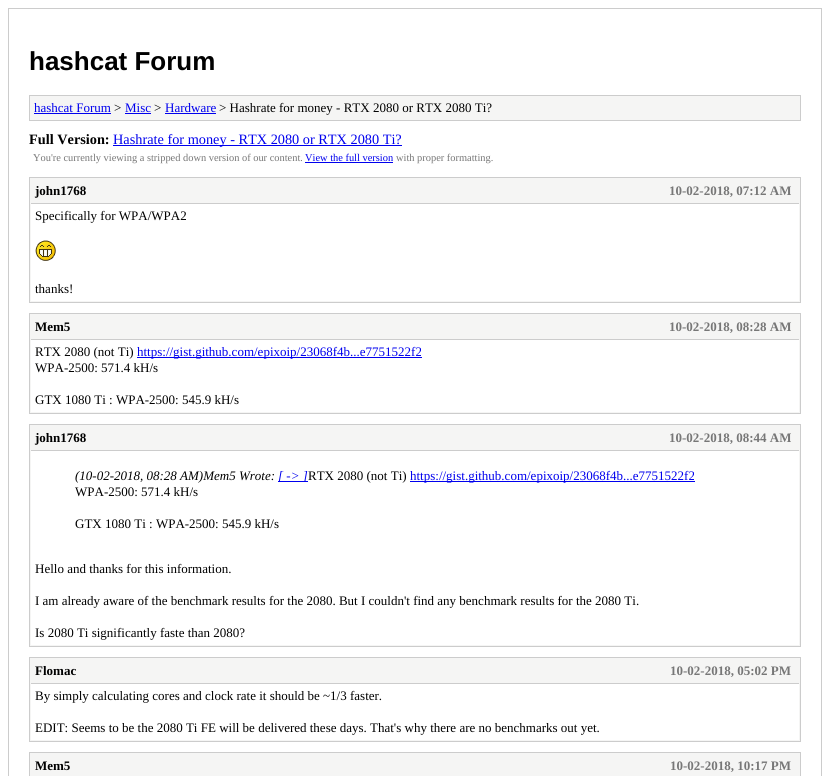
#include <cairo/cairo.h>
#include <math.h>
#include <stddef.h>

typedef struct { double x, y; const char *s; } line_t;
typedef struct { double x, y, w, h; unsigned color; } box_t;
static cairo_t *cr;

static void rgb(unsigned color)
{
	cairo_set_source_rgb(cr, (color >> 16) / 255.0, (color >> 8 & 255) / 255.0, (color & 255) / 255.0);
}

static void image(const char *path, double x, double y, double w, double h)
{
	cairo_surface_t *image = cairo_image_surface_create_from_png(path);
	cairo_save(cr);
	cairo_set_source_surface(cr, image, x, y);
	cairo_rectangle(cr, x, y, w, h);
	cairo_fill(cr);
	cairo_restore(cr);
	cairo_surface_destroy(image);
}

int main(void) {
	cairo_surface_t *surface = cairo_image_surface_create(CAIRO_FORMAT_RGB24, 830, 776);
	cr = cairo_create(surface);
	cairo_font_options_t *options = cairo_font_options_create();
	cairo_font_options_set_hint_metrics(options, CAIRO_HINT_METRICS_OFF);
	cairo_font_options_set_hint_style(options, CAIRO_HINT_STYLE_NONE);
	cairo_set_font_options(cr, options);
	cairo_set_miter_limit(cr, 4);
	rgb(0xffffff);
	cairo_paint(cr);
	cairo_rectangle(cr, 8.5, 8.5, 813, 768);
	rgb(0xcccccc);
	cairo_set_line_width(cr, 1);
	cairo_stroke(cr);
	rgb(0xf5f5f4);
	cairo_rectangle(cr, 29.5, 95.5, 771, 25);
	cairo_fill_preserve(cr);
	rgb(0xcccccc);
	cairo_stroke(cr);
	{
		static const box_t items[] = {
			{34, 113, 77, 1, 0x0000ee},
			{125, 113, 26, 1, 0x0000ee},
			{165, 113, 51, 1, 0x0000ee},
			{113, 145, 289, 1, 0x0000ee},
			{305, 162, 88, 1, 0x0000ee},
		};
		for (size_t i = 0; i < sizeof items / sizeof *items; i++) {
			rgb(items[i].color);
			cairo_rectangle(cr, items[i].x, items[i].y, items[i].w, items[i].h);
			cairo_fill(cr);
		}
	}
	rgb(0xf5f5f4);
	cairo_rectangle(cr, 29.5, 177.5, 771, 125);
	cairo_fill_preserve(cr);
	rgb(0xcccccc);
	cairo_stroke(cr);
	cairo_rectangle(cr, 31, 203, 768, 1);
	cairo_fill(cr);
	rgb(0xffffff);
	cairo_rectangle(cr, 31, 204, 768, 97);
	cairo_fill(cr);
	image("img/1.png", 35, 240, 21, 21);
	rgb(0xf5f5f4);
	cairo_rectangle(cr, 29.5, 313.5, 771, 100);
	cairo_fill_preserve(cr);
	rgb(0xcccccc);
	cairo_stroke(cr);
	{
		static const box_t items[] = {
			{31, 339, 768, 1, 0xcccccc},
			{31, 340, 768, 72, 0xffffff},
			{137, 357, 285, 1, 0x0000ee},
		};
		for (size_t i = 0; i < sizeof items / sizeof *items; i++) {
			rgb(items[i].color);
			cairo_rectangle(cr, items[i].x, items[i].y, items[i].w, items[i].h);
			cairo_fill(cr);
		}
	}
	rgb(0xf5f5f4);
	cairo_rectangle(cr, 29.5, 424.5, 771, 222);
	cairo_fill_preserve(cr);
	rgb(0xcccccc);
	cairo_stroke(cr);
	{
		static const box_t items[] = {
			{31, 450, 768, 1, 0xcccccc},
			{31, 451, 768, 194, 0xffffff},
			{278, 481, 30, 1, 0x0000ee},
			{410, 481, 285, 1, 0x0000ee},
		};
		for (size_t i = 0; i < sizeof items / sizeof *items; i++) {
			rgb(items[i].color);
			cairo_rectangle(cr, items[i].x, items[i].y, items[i].w, items[i].h);
			cairo_fill(cr);
		}
	}
	rgb(0xf5f5f4);
	cairo_rectangle(cr, 29.5, 657.5, 771, 84);
	cairo_fill_preserve(cr);
	rgb(0xcccccc);
	cairo_stroke(cr);
	cairo_rectangle(cr, 31, 683, 768, 1);
	cairo_fill(cr);
	rgb(0xffffff);
	cairo_rectangle(cr, 31, 684, 768, 56);
	cairo_fill(cr);
	rgb(0xf5f5f4);
	cairo_rectangle(cr, 29.5, 752.5, 771, 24);
	cairo_fill_preserve(cr);
	rgb(0xcccccc);
	cairo_stroke(cr);
	cairo_select_font_face(cr, "Liberation Sans", CAIRO_FONT_SLANT_NORMAL, CAIRO_FONT_WEIGHT_BOLD);
	cairo_set_font_size(cr, 26);
	rgb(0x000000);
	cairo_move_to(cr, 29, 70);
	cairo_show_text(cr, "hashcat Forum");
	cairo_select_font_face(cr, "Liberation Serif", CAIRO_FONT_SLANT_NORMAL, CAIRO_FONT_WEIGHT_NORMAL);
	cairo_set_font_size(cr, 13);
	rgb(0x0000ee);
	cairo_move_to(cr, 34, 112);
	cairo_show_text(cr, "hashcat Forum");
	rgb(0x000000);
	cairo_move_to(cr, 114, 112);
	cairo_show_text(cr, ">");
	rgb(0x0000ee);
	cairo_move_to(cr, 125, 112);
	cairo_show_text(cr, "Misc");
	rgb(0x000000);
	cairo_move_to(cr, 154, 112);
	cairo_show_text(cr, ">");
	rgb(0x0000ee);
	cairo_move_to(cr, 165, 112);
	cairo_show_text(cr, "Hardware");
	rgb(0x000000);
	cairo_move_to(cr, 219, 112);
	cairo_show_text(cr, "> Hashrate for money - RTX 2080 or RTX 2080 Ti?");
	cairo_select_font_face(cr, "Liberation Serif", CAIRO_FONT_SLANT_NORMAL, CAIRO_FONT_WEIGHT_BOLD);
	cairo_set_font_size(cr, 14.3);
	cairo_move_to(cr, 29, 144);
	cairo_show_text(cr, "Full Version:");
	cairo_select_font_face(cr, "Liberation Serif", CAIRO_FONT_SLANT_NORMAL, CAIRO_FONT_WEIGHT_NORMAL);
	rgb(0x0000ee);
	cairo_move_to(cr, 113, 144);
	cairo_show_text(cr, "Hashrate for money - RTX 2080 or RTX 2080 Ti?");
	cairo_set_font_size(cr, 10.4);
	rgb(0x777777);
	cairo_move_to(cr, 33, 161);
	cairo_show_text(cr, "You're currently viewing a stripped down version of our content.");
	rgb(0x0000ee);
	cairo_move_to(cr, 305, 161);
	cairo_show_text(cr, "View the full version");
	rgb(0x777777);
	cairo_move_to(cr, 396, 161);
	cairo_show_text(cr, "with proper formatting.");
	cairo_select_font_face(cr, "Liberation Serif", CAIRO_FONT_SLANT_NORMAL, CAIRO_FONT_WEIGHT_BOLD);
	cairo_set_font_size(cr, 13);
	rgb(0x000000);
	cairo_move_to(cr, 35, 195);
	cairo_show_text(cr, "john1768");
	rgb(0x777777);
	cairo_move_to(cr, 669, 195);
	cairo_show_text(cr, "10-02-2018, 07:12 AM");
	cairo_select_font_face(cr, "Liberation Serif", CAIRO_FONT_SLANT_NORMAL, CAIRO_FONT_WEIGHT_NORMAL);
	rgb(0x000000);
	cairo_move_to(cr, 35, 220);
	cairo_show_text(cr, "Specifically for WPA/WPA2");
	cairo_move_to(cr, 35, 293);
	cairo_show_text(cr, "thanks!");
	cairo_select_font_face(cr, "Liberation Serif", CAIRO_FONT_SLANT_NORMAL, CAIRO_FONT_WEIGHT_BOLD);
	cairo_move_to(cr, 35, 331);
	cairo_show_text(cr, "Mem5");
	rgb(0x777777);
	cairo_move_to(cr, 669, 331);
	cairo_show_text(cr, "10-02-2018, 08:28 AM");
	cairo_select_font_face(cr, "Liberation Serif", CAIRO_FONT_SLANT_NORMAL, CAIRO_FONT_WEIGHT_NORMAL);
	rgb(0x000000);
	cairo_move_to(cr, 35, 356);
	cairo_show_text(cr, "RTX 2080 (not Ti)");
	rgb(0x0000ee);
	cairo_move_to(cr, 137, 356);
	cairo_show_text(cr, "https://gist.github.com/epixoip/23068f4b...e7751522f2");
	rgb(0x000000);
	cairo_move_to(cr, 35, 372);
	cairo_show_text(cr, "WPA-2500: 571.4 kH/s");
	cairo_move_to(cr, 35, 404);
	cairo_show_text(cr, "GTX 1080 Ti : WPA-2500: 545.9 kH/s");
	cairo_select_font_face(cr, "Liberation Serif", CAIRO_FONT_SLANT_NORMAL, CAIRO_FONT_WEIGHT_BOLD);
	cairo_move_to(cr, 35, 442);
	cairo_show_text(cr, "john1768");
	rgb(0x777777);
	cairo_move_to(cr, 669, 442);
	cairo_show_text(cr, "10-02-2018, 08:44 AM");
	cairo_select_font_face(cr, "Liberation Serif", CAIRO_FONT_SLANT_ITALIC, CAIRO_FONT_WEIGHT_NORMAL);
	rgb(0x000000);
	cairo_move_to(cr, 75, 480);
	cairo_show_text(cr, "(10-02-2018, 08:28 AM)Mem5 Wrote:");
	rgb(0x0000ee);
	cairo_move_to(cr, 278, 480);
	cairo_show_text(cr, "[ -> ]");
	cairo_select_font_face(cr, "Liberation Serif", CAIRO_FONT_SLANT_NORMAL, CAIRO_FONT_WEIGHT_NORMAL);
	rgb(0x000000);
	cairo_move_to(cr, 308, 480);
	cairo_show_text(cr, "RTX 2080 (not Ti)");
	rgb(0x0000ee);
	cairo_move_to(cr, 410, 480);
	cairo_show_text(cr, "https://gist.github.com/epixoip/23068f4b...e7751522f2");
	rgb(0x000000);
	{
		static const line_t items[] = {
			{75, 496, "WPA-2500: 571.4 kH/s"},
			{75, 528, "GTX 1080 Ti : WPA-2500: 545.9 kH/s"},
			{35, 573, "Hello and thanks for this information."},
			{35, 605, "I am already aware of the benchmark results for the 2080. But I couldn't find any benchmark results for the 2080 Ti."},
			{35, 637, "Is 2080 Ti significantly faste than 2080?"},
		};
		for (size_t i = 0; i < sizeof items / sizeof *items; i++) {
			cairo_move_to(cr, items[i].x, items[i].y);
			cairo_show_text(cr, items[i].s);
		}
	}
	cairo_select_font_face(cr, "Liberation Serif", CAIRO_FONT_SLANT_NORMAL, CAIRO_FONT_WEIGHT_BOLD);
	cairo_move_to(cr, 35, 675);
	cairo_show_text(cr, "Flomac");
	rgb(0x777777);
	cairo_move_to(cr, 670, 675);
	cairo_show_text(cr, "10-02-2018, 05:02 PM");
	cairo_select_font_face(cr, "Liberation Serif", CAIRO_FONT_SLANT_NORMAL, CAIRO_FONT_WEIGHT_NORMAL);
	rgb(0x000000);
	cairo_move_to(cr, 35, 700);
	cairo_show_text(cr, "By simply calculating cores and clock rate it should be ~1/3 faster.");
	cairo_move_to(cr, 35, 732);
	cairo_show_text(cr, "EDIT: Seems to be the 2080 Ti FE will be delivered these days. That's why there are no benchmarks out yet.");
	cairo_select_font_face(cr, "Liberation Serif", CAIRO_FONT_SLANT_NORMAL, CAIRO_FONT_WEIGHT_BOLD);
	cairo_move_to(cr, 35, 770);
	cairo_show_text(cr, "Mem5");
	rgb(0x777777);
	cairo_move_to(cr, 670, 770);
	cairo_show_text(cr, "10-02-2018, 10:17 PM");
	cairo_surface_write_to_png(surface, "page.png");
	cairo_font_options_destroy(options);
	cairo_destroy(cr);
	cairo_surface_destroy(surface);
	return 0;
}
